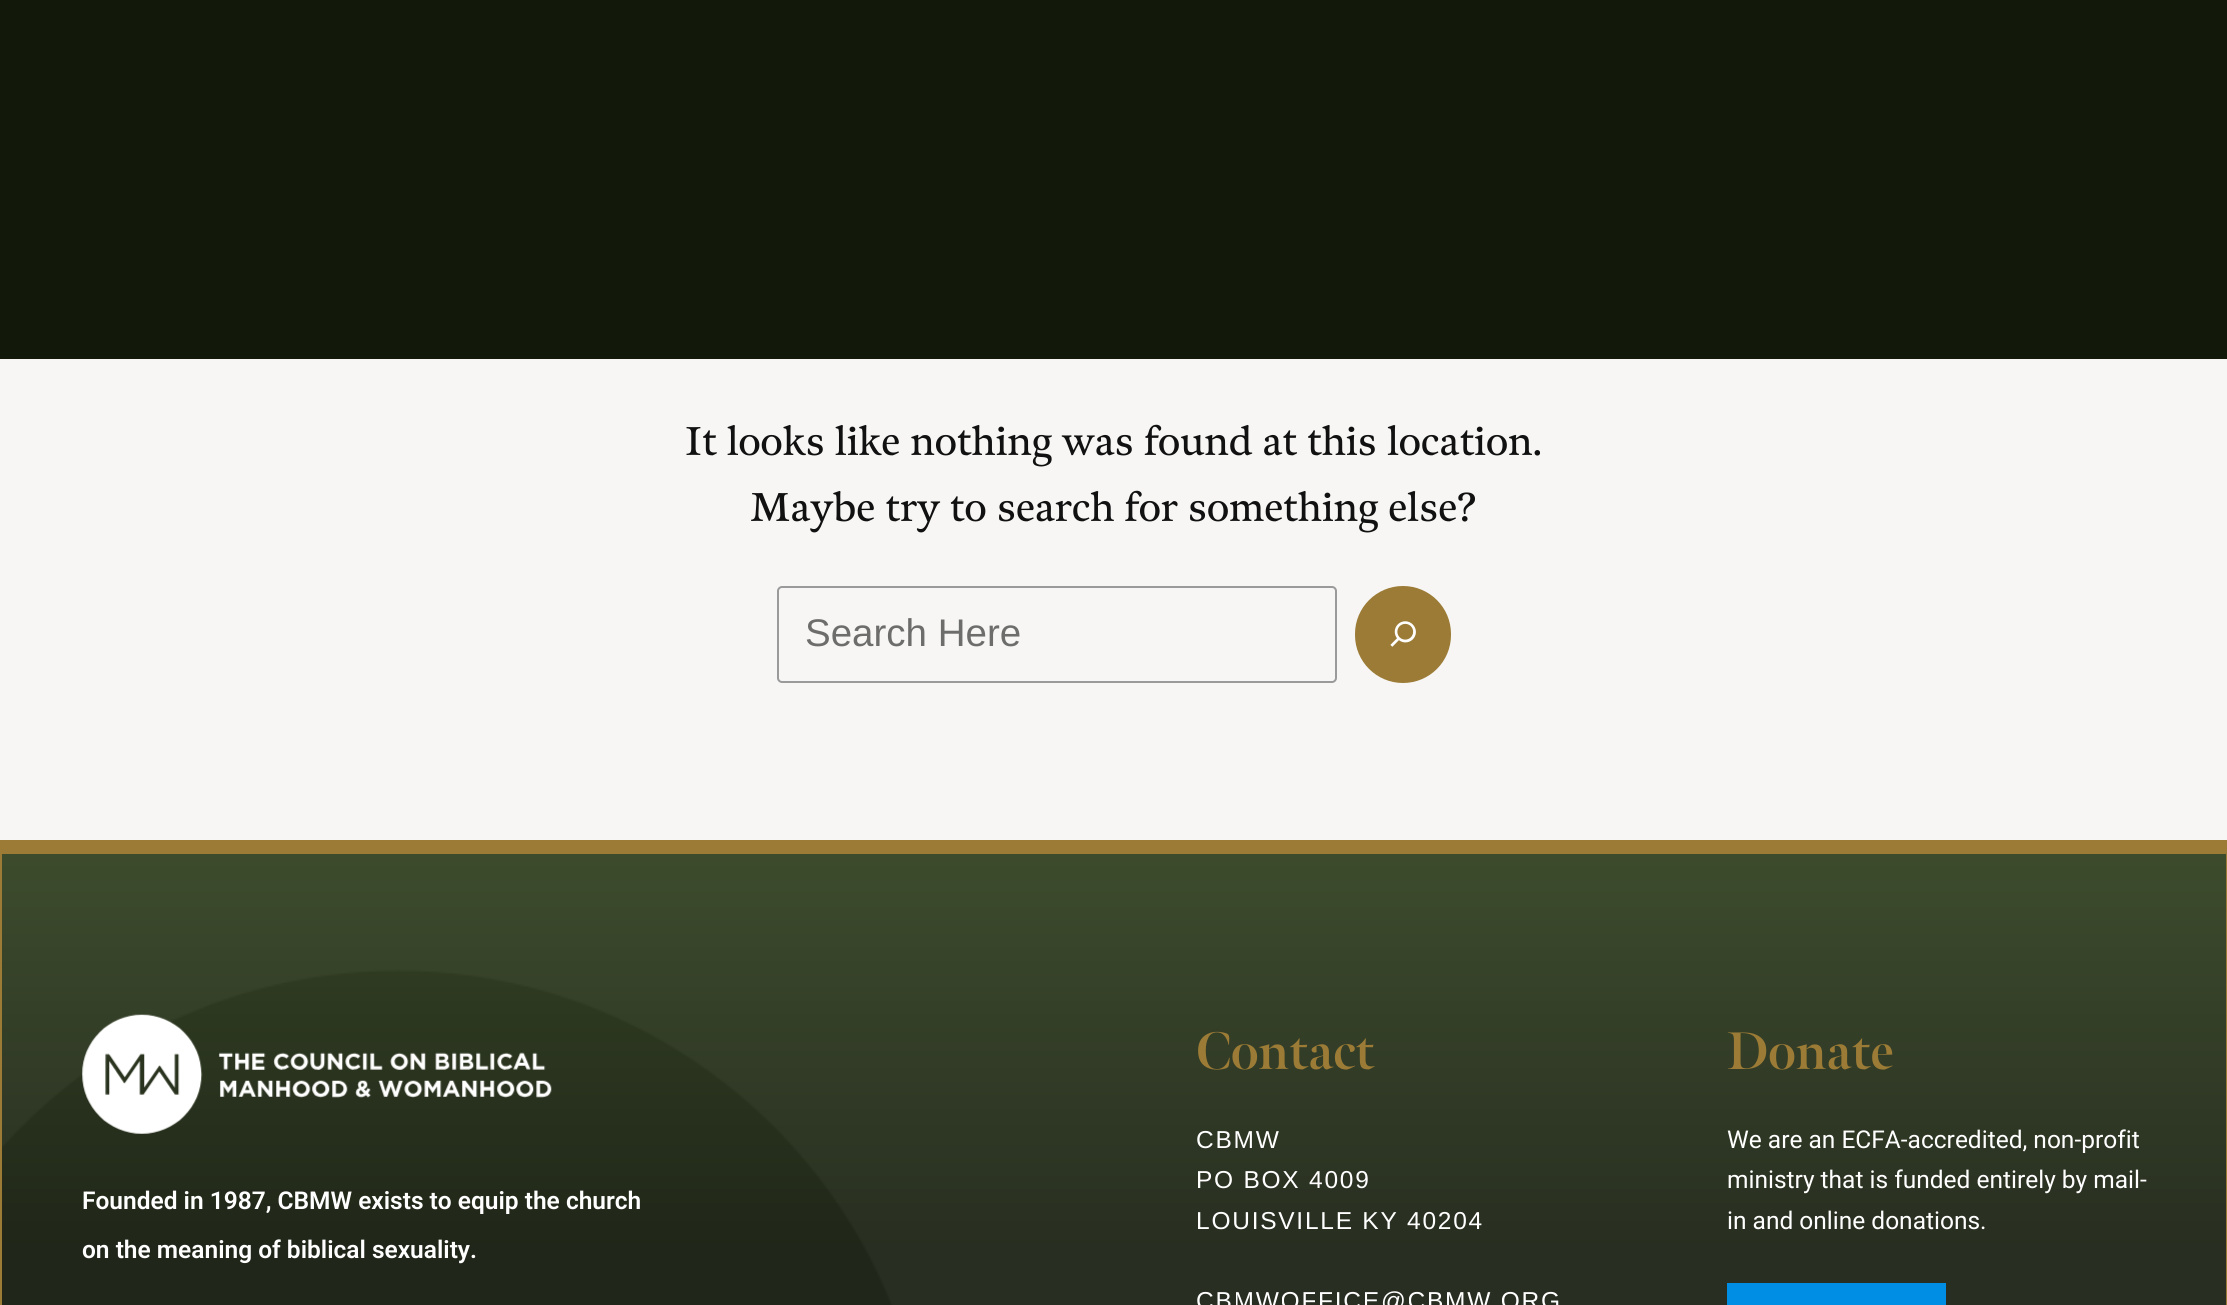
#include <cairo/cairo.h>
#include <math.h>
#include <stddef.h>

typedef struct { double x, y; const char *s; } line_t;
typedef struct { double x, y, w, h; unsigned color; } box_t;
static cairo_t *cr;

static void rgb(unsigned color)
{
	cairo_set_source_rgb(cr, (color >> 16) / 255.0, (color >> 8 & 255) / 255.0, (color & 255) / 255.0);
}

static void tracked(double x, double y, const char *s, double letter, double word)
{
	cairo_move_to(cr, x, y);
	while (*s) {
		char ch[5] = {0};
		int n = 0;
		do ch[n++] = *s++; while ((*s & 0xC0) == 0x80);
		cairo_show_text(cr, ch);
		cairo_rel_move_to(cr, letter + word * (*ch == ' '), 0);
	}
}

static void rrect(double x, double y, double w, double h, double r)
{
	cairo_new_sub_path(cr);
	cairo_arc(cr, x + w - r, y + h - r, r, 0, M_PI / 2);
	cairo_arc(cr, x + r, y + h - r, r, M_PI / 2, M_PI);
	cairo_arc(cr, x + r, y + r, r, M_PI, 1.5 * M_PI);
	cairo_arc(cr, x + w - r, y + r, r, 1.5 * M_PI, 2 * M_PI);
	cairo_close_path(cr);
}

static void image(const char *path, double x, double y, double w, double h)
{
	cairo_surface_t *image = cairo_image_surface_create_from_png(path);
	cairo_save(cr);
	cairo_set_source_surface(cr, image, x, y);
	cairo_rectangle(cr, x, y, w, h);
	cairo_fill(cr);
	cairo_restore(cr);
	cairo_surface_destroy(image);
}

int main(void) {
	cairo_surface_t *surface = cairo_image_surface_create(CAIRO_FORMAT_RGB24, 2227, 1305);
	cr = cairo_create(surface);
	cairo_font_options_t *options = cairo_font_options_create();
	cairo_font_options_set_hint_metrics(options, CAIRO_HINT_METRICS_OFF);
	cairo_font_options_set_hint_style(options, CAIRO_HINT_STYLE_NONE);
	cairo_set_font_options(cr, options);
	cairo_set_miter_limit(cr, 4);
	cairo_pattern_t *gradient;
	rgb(0xf7f6f4);
	cairo_paint(cr);
	rgb(0x12190a);
	cairo_rectangle(cr, 0, 0, 2227, 359);
	cairo_fill(cr);
	rrect(778, 587, 558, 95, 4);
	rgb(0x9a9a9a);
	cairo_stroke(cr);
	rgb(0x9b7b35);
	rrect(1355, 586, 96, 97, 48);
	cairo_fill(cr);
	image("img/1.png", 1390, 621, 26, 26);
	rgb(0xf1f1f1);
	cairo_rectangle(cr, 2, 854, 2224, 451);
	cairo_fill(cr);
	image("img/2.png", 2, 969, 891, 336);
	{
		static const box_t items[] = {
			{2, 840, 2224, 14, 0x9b7b35},
			{2226, 840, 1, 465, 0x9b7b35},
			{0, 840, 2, 465, 0x9b7b35},
		};
		for (size_t i = 0; i < sizeof items / sizeof *items; i++) {
			rgb(items[i].color);
			cairo_rectangle(cr, items[i].x, items[i].y, items[i].w, items[i].h);
			cairo_fill(cr);
		}
	}
	gradient = cairo_pattern_create_linear(1114, 854, 1114, 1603);
	cairo_pattern_add_color_stop_rgba(gradient, 0, 0.161, 0.224, 0.09, 0.9);
	cairo_pattern_add_color_stop_rgba(gradient, 0.52, 0.071, 0.098, 0.039, 0.9);
	cairo_set_source(cr, gradient);
	cairo_pattern_destroy(gradient);
	cairo_rectangle(cr, 2, 854, 2224, 451);
	cairo_fill(cr);
	image("img/3.png", 82, 1014, 470, 120);
	rgb(0x008de4);
	cairo_rectangle(cr, 1727, 1283, 219, 22);
	cairo_fill(cr);
	cairo_select_font_face(cr, "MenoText", CAIRO_FONT_SLANT_NORMAL, CAIRO_FONT_WEIGHT_NORMAL);
	cairo_set_font_size(cr, 40.25);
	rgb(0x111111);
	cairo_move_to(cr, 685, 455);
	cairo_show_text(cr, "It looks like nothing was found at this location.");
	cairo_move_to(cr, 750, 521);
	cairo_show_text(cr, "Maybe try to search for something else?");
	cairo_select_font_face(cr, "Liberation Sans", CAIRO_FONT_SLANT_NORMAL, CAIRO_FONT_WEIGHT_NORMAL);
	cairo_set_font_size(cr, 38.5);
	rgb(0x6d6d6c);
	cairo_move_to(cr, 805, 646);
	cairo_show_text(cr, "Search Here");
	cairo_select_font_face(cr, "Roboto SemiBold", CAIRO_FONT_SLANT_NORMAL, CAIRO_FONT_WEIGHT_NORMAL);
	cairo_set_font_size(cr, 24.5);
	rgb(0xffffff);
	cairo_move_to(cr, 82, 1209);
	cairo_show_text(cr, "Founded in 1987, CBMW exists to equip the church");
	cairo_move_to(cr, 82, 1258);
	cairo_show_text(cr, "on the meaning of biblical sexuality.");
	cairo_select_font_face(cr, "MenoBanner", CAIRO_FONT_SLANT_NORMAL, CAIRO_FONT_WEIGHT_BOLD);
	cairo_set_font_size(cr, 52.5);
	rgb(0x9b7b35);
	cairo_move_to(cr, 1196, 1069);
	cairo_show_text(cr, "Contact");
	cairo_select_font_face(cr, "Liberation Sans", CAIRO_FONT_SLANT_NORMAL, CAIRO_FONT_WEIGHT_NORMAL);
	cairo_set_font_size(cr, 24.5);
	rgb(0xffffff);
	{
		static const line_t items[] = {
			{1196, 1148, "CBMW"},
			{1196, 1188, "PO BOX 4009"},
			{1196, 1229, "LOUISVILLE KY 40204"},
			{1196, 1309, "CBMWOFFICE@CBMW.ORG"},
		};
		for (size_t i = 0; i < sizeof items / sizeof *items; i++) {
			tracked(items[i].x, items[i].y, items[i].s, 1.75, 0);
		}
	}
	cairo_select_font_face(cr, "MenoBanner", CAIRO_FONT_SLANT_NORMAL, CAIRO_FONT_WEIGHT_BOLD);
	cairo_set_font_size(cr, 52.5);
	rgb(0x9b7b35);
	cairo_move_to(cr, 1727, 1069);
	cairo_show_text(cr, "Donate");
	cairo_select_font_face(cr, "Roboto", CAIRO_FONT_SLANT_NORMAL, CAIRO_FONT_WEIGHT_NORMAL);
	cairo_set_font_size(cr, 24.5);
	rgb(0xffffff);
	{
		static const line_t items[] = {
			{1727, 1148, "We are an ECFA-accredited, non-profit"},
			{1727, 1188, "ministry that is funded entirely by mail-"},
			{1727, 1229, "in and online donations."},
		};
		for (size_t i = 0; i < sizeof items / sizeof *items; i++) {
			cairo_move_to(cr, items[i].x, items[i].y);
			cairo_show_text(cr, items[i].s);
		}
	}
	cairo_surface_write_to_png(surface, "page.png");
	cairo_font_options_destroy(options);
	cairo_destroy(cr);
	cairo_surface_destroy(surface);
	return 0;
}
